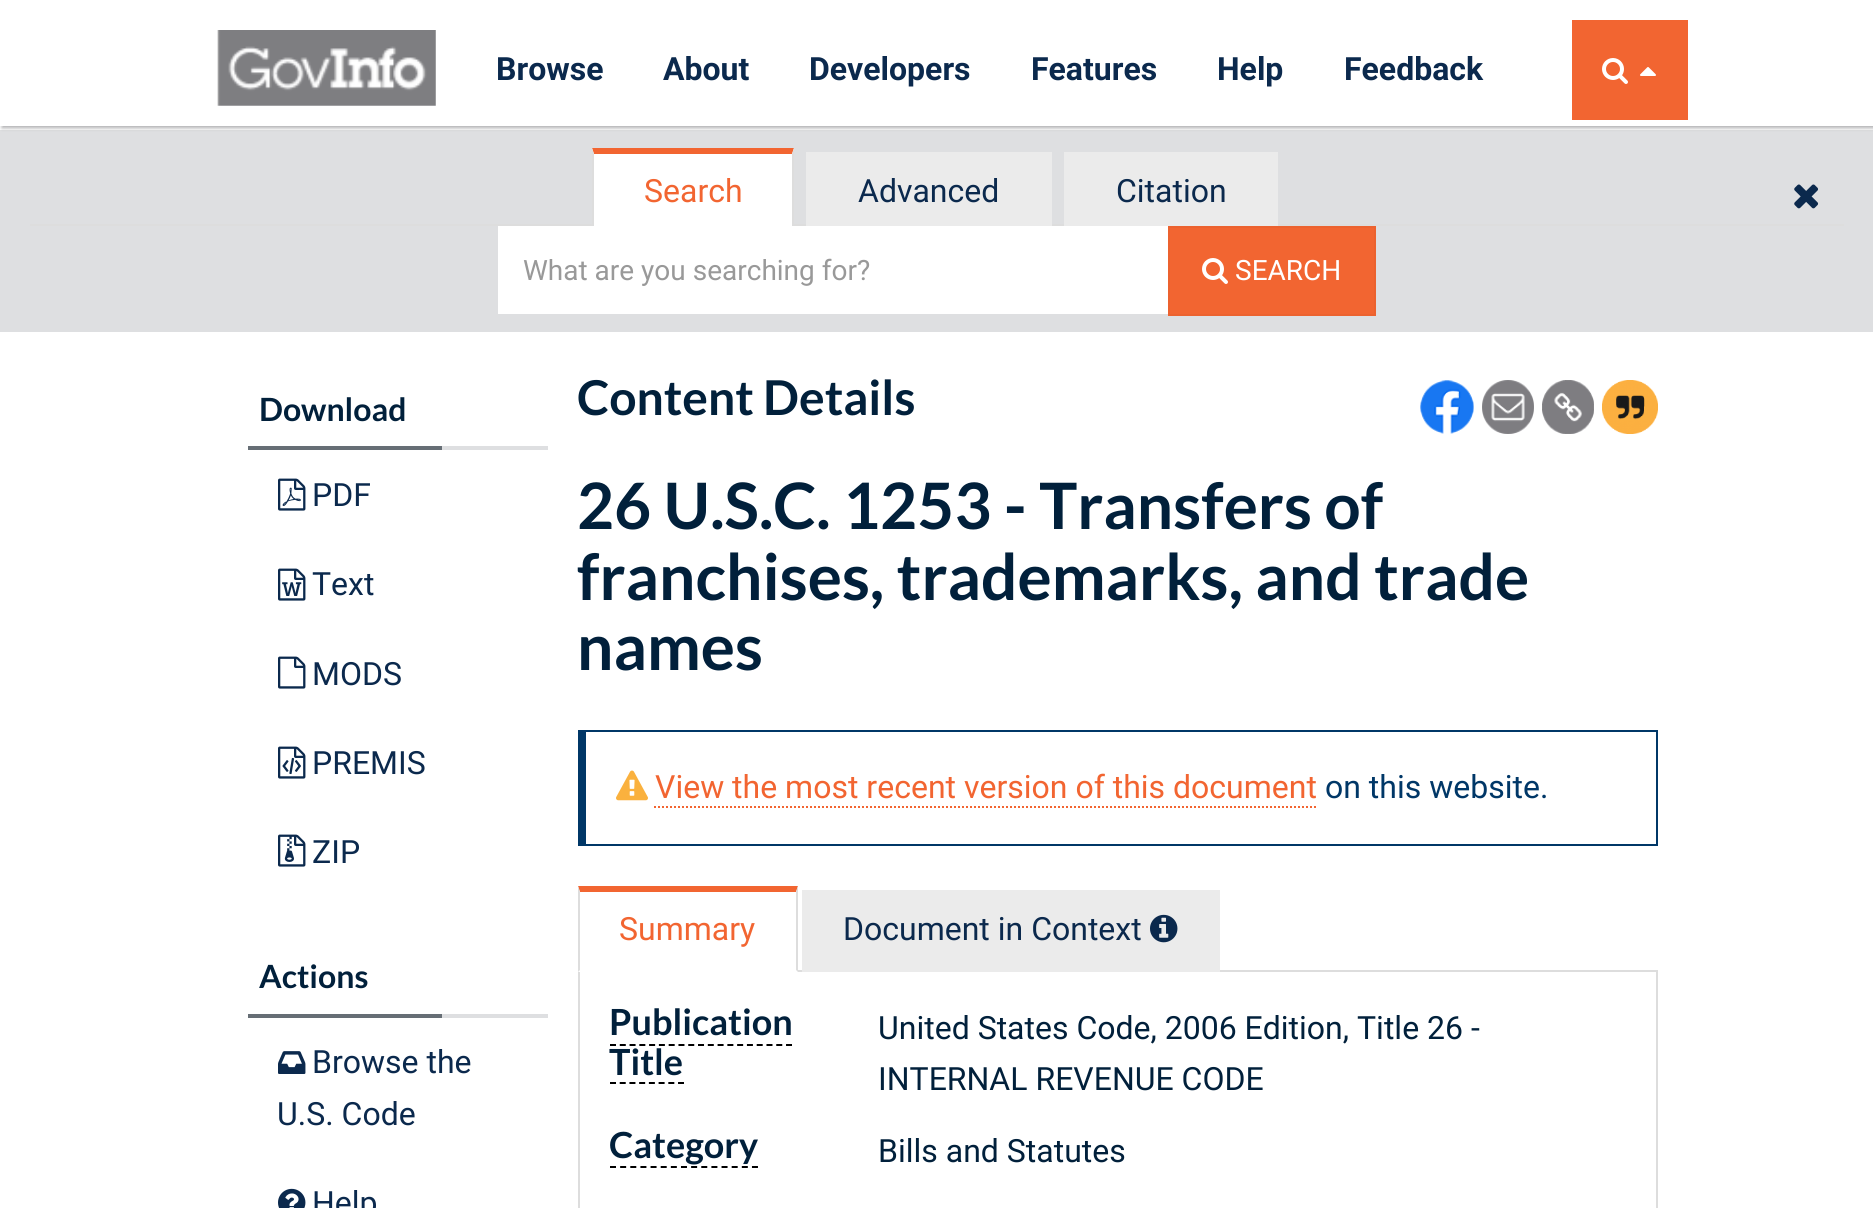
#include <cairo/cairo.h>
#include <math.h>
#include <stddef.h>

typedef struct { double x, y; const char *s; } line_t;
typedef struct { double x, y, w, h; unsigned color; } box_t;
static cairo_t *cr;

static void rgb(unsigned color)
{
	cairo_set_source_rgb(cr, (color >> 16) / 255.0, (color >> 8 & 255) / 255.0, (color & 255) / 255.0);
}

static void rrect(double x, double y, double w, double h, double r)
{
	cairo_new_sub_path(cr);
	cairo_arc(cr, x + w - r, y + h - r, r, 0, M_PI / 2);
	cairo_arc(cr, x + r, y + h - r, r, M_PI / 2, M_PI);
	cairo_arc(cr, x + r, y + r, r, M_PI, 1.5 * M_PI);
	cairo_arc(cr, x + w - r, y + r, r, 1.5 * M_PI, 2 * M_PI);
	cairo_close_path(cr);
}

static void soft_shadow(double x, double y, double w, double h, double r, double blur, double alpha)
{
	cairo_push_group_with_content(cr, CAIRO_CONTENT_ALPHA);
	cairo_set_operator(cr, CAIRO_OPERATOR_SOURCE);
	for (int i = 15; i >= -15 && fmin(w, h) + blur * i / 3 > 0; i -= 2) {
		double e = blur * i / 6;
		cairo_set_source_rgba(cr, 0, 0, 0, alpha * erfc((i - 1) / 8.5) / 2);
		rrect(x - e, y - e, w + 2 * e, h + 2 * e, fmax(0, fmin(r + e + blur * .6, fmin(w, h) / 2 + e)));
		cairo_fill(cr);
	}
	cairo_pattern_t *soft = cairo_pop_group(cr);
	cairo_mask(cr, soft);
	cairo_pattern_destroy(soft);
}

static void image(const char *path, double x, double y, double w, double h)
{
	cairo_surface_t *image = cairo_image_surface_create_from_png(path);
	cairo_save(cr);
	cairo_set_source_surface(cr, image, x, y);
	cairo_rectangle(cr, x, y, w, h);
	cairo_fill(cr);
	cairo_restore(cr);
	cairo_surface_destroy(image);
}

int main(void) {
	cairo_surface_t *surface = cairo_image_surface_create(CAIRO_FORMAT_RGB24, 1873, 1208);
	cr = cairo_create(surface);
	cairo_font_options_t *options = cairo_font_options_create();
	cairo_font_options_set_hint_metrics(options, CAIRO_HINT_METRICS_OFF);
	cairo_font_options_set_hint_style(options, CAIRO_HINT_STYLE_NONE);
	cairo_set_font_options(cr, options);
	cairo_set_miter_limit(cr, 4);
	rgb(0xffffff);
	cairo_paint(cr);
	rgb(0xdedfe1);
	cairo_rectangle(cr, 0, 130, 1873, 202);
	cairo_fill(cr);
	cairo_save(cr);
	cairo_rectangle(cr, 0, 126, 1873, 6);
	cairo_clip(cr);
	rgb(0xacacae);
	soft_shadow(2, 2, 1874, 126, 0, 2, 1);
	cairo_restore(cr);
	image("img/1.png", 217, 30, 219, 76);
	rgb(0xf26531);
	cairo_rectangle(cr, 1572, 20, 116, 100);
	cairo_fill(cr);
	image("img/2.png", 1602, 58, 26, 26);
	image("img/3.png", 1640, 67, 16, 9);
	rgb(0xdddddd);
	cairo_rectangle(cr, 30, 224, 1814, 2);
	cairo_fill(cr);
	rgb(0xffffff);
	cairo_rectangle(cr, 592, 148, 202, 78);
	cairo_fill(cr);
	rgb(0xf26531);
	cairo_new_path(cr);
	cairo_move_to(cr, 592, 148);
	cairo_line_to(cr, 794, 148);
	cairo_line_to(cr, 792, 154);
	cairo_line_to(cr, 594, 154);
	cairo_close_path(cr);
	cairo_fill(cr);
	rgb(0xdddddd);
	cairo_new_path(cr);
	cairo_move_to(cr, 794, 148);
	cairo_line_to(cr, 794, 234);
	cairo_line_to(cr, 792, 232);
	cairo_line_to(cr, 792, 154);
	cairo_close_path(cr);
	cairo_fill(cr);
	cairo_new_path(cr);
	cairo_move_to(cr, 592, 234);
	cairo_line_to(cr, 592, 148);
	cairo_line_to(cr, 594, 154);
	cairo_line_to(cr, 594, 232);
	cairo_close_path(cr);
	cairo_fill(cr);
	{
		static const box_t items[] = {
			{806, 152, 246, 74, 0xebebeb},
			{1064, 152, 214, 74, 0xebebeb},
			{498, 226, 670, 88, 0xffffff},
		};
		for (size_t i = 0; i < sizeof items / sizeof *items; i++) {
			rgb(items[i].color);
			cairo_rectangle(cr, items[i].x, items[i].y, items[i].w, items[i].h);
			cairo_fill(cr);
		}
	}
	rgb(0xf26531);
	cairo_rectangle(cr, 1169, 227, 206, 88);
	cairo_fill_preserve(cr);
	rgb(0xec622f);
	cairo_stroke(cr);
	image("img/2.png", 1202, 258, 26, 26);
	image("img/4.png", 1794, 184, 25, 25);
	rgb(0xdedfe1);
	cairo_rectangle(cr, 442, 446, 106, 4);
	cairo_fill(cr);
	rgb(0x666e75);
	cairo_rectangle(cr, 248, 446, 194, 4);
	cairo_fill(cr);
	image("img/5.png", 278, 478, 28, 33);
	image("img/6.png", 278, 568, 28, 33);
	image("img/7.png", 278, 656, 28, 33);
	image("img/8.png", 278, 746, 28, 33);
	image("img/9.png", 278, 834, 28, 33);
	rgb(0xdedfe1);
	cairo_rectangle(cr, 442, 1014, 106, 4);
	cairo_fill(cr);
	rgb(0x666e75);
	cairo_rectangle(cr, 248, 1014, 194, 4);
	cairo_fill(cr);
	image("img/10.png", 278, 1051, 28, 23);
	image("img/11.png", 278, 1188, 28, 20);
	image("img/12.png", 1420, 380, 54, 54);
	image("img/13.png", 1482, 380, 52, 54);
	image("img/14.png", 1542, 380, 52, 54);
	image("img/15.png", 1602, 380, 56, 54);
	{
		static const box_t items[] = {
			{578, 730, 1080, 2, 0x003767},
			{1656, 730, 2, 116, 0x003767},
			{578, 844, 1080, 2, 0x003767},
			{578, 730, 8, 116, 0x003767},
		};
		for (size_t i = 0; i < sizeof items / sizeof *items; i++) {
			rgb(items[i].color);
			cairo_rectangle(cr, items[i].x, items[i].y, items[i].w, items[i].h);
			cairo_fill(cr);
		}
	}
	image("img/16.png", 616, 770, 32, 31);
	cairo_new_path(cr);
	cairo_move_to(cr, 654, 807);
	cairo_line_to(cr, 1316, 807);
	rgb(0xf26531);
	cairo_set_dash(cr, (double[]){2, 2}, 2, 0);
	cairo_stroke(cr);
	rgb(0xdddddd);
	cairo_rectangle(cr, 798, 970, 860, 2);
	cairo_fill(cr);
	rgb(0xf26531);
	cairo_new_path(cr);
	cairo_move_to(cr, 578, 886);
	cairo_line_to(cr, 798, 886);
	cairo_line_to(cr, 796, 892);
	cairo_line_to(cr, 580, 892);
	cairo_close_path(cr);
	cairo_fill(cr);
	rgb(0xdddddd);
	cairo_new_path(cr);
	cairo_move_to(cr, 798, 886);
	cairo_line_to(cr, 798, 972);
	cairo_line_to(cr, 796, 970);
	cairo_line_to(cr, 796, 892);
	cairo_close_path(cr);
	cairo_fill(cr);
	cairo_new_path(cr);
	cairo_move_to(cr, 578, 972);
	cairo_line_to(cr, 578, 886);
	cairo_line_to(cr, 580, 892);
	cairo_line_to(cr, 580, 970);
	cairo_close_path(cr);
	cairo_fill(cr);
	rgb(0xebebeb);
	cairo_rectangle(cr, 802, 890, 418, 82);
	cairo_fill(cr);
	image("img/17.png", 1150, 914, 28, 29);
	rgb(0xdddddd);
	cairo_rectangle(cr, 1656, 972, 2, 236);
	cairo_fill(cr);
	cairo_rectangle(cr, 578, 972, 2, 236);
	cairo_fill(cr);
	cairo_new_path(cr);
	cairo_move_to(cr, 610, 1045);
	cairo_line_to(cr, 792, 1045);
	rgb(0x000000);
	cairo_set_dash(cr, (double[]){6, 3.78}, 2, 0);
	cairo_stroke(cr);
	cairo_new_path(cr);
	cairo_move_to(cr, 610, 1083);
	cairo_line_to(cr, 684, 1083);
	cairo_set_dash(cr, (double[]){6, 3.72}, 2, 0);
	cairo_stroke(cr);
	cairo_new_path(cr);
	cairo_move_to(cr, 610, 1167);
	cairo_line_to(cr, 758, 1167);
	cairo_set_dash(cr, (double[]){6, 4.14}, 2, 0);
	cairo_stroke(cr);
	cairo_select_font_face(cr, "Roboto", CAIRO_FONT_SLANT_NORMAL, CAIRO_FONT_WEIGHT_BOLD);
	cairo_set_font_size(cr, 32);
	rgb(0x0b294d);
	{
		static const line_t items[] = {
			{496, 80, "Browse"},
			{663, 80, "About"},
			{809, 80, "Developers"},
			{1031, 80, "Features"},
			{1217, 80, "Help"},
			{1344, 80, "Feedback"},
		};
		for (size_t i = 0; i < sizeof items / sizeof *items; i++) {
			cairo_move_to(cr, items[i].x, items[i].y);
			cairo_show_text(cr, items[i].s);
		}
	}
	cairo_select_font_face(cr, "Roboto", CAIRO_FONT_SLANT_NORMAL, CAIRO_FONT_WEIGHT_NORMAL);
	rgb(0xf26531);
	cairo_move_to(cr, 644, 202);
	cairo_show_text(cr, "Search");
	rgb(0x0b294d);
	cairo_move_to(cr, 858, 202);
	cairo_show_text(cr, "Advanced");
	cairo_move_to(cr, 1116, 202);
	cairo_show_text(cr, "Citation");
	cairo_set_font_size(cr, 28);
	rgb(0x999999);
	cairo_move_to(cr, 523, 280);
	cairo_show_text(cr, "What are you searching for?");
	rgb(0xffffff);
	cairo_move_to(cr, 1235, 280);
	cairo_show_text(cr, "SEARCH");
	cairo_select_font_face(cr, "Lato", CAIRO_FONT_SLANT_NORMAL, CAIRO_FONT_WEIGHT_BOLD);
	cairo_set_font_size(cr, 32);
	rgb(0x01203b);
	cairo_move_to(cr, 259, 421);
	cairo_show_text(cr, "Download");
	cairo_select_font_face(cr, "Roboto", CAIRO_FONT_SLANT_NORMAL, CAIRO_FONT_WEIGHT_NORMAL);
	rgb(0x0b294d);
	{
		static const line_t items[] = {
			{312, 506, "PDF"},
			{312, 595, "Text"},
			{312, 685, "MODS"},
			{312, 774, "PREMIS"},
			{312, 863, "ZIP"},
		};
		for (size_t i = 0; i < sizeof items / sizeof *items; i++) {
			cairo_move_to(cr, items[i].x, items[i].y);
			cairo_show_text(cr, items[i].s);
		}
	}
	cairo_select_font_face(cr, "Lato", CAIRO_FONT_SLANT_NORMAL, CAIRO_FONT_WEIGHT_BOLD);
	rgb(0x01203b);
	cairo_move_to(cr, 259, 988);
	cairo_show_text(cr, "Actions");
	cairo_select_font_face(cr, "Roboto", CAIRO_FONT_SLANT_NORMAL, CAIRO_FONT_WEIGHT_NORMAL);
	rgb(0x0b294d);
	{
		static const line_t items[] = {
			{312, 1073, "Browse the"},
			{277, 1125, "U.S. Code"},
			{312, 1214, "Help"},
		};
		for (size_t i = 0; i < sizeof items / sizeof *items; i++) {
			cairo_move_to(cr, items[i].x, items[i].y);
			cairo_show_text(cr, items[i].s);
		}
	}
	cairo_select_font_face(cr, "Lato", CAIRO_FONT_SLANT_NORMAL, CAIRO_FONT_WEIGHT_BOLD);
	cairo_set_font_size(cr, 48);
	rgb(0x01203b);
	cairo_move_to(cr, 577, 415);
	cairo_show_text(cr, "Content Details");
	cairo_set_font_size(cr, 64);
	{
		static const line_t items[] = {
			{577, 529, "26 U.S.C. 1253 - Transfers of"},
			{577, 600, "franchises, trademarks, and trade"},
			{577, 670, "names"},
		};
		for (size_t i = 0; i < sizeof items / sizeof *items; i++) {
			cairo_move_to(cr, items[i].x, items[i].y);
			cairo_show_text(cr, items[i].s);
		}
	}
	cairo_select_font_face(cr, "Roboto", CAIRO_FONT_SLANT_NORMAL, CAIRO_FONT_WEIGHT_NORMAL);
	cairo_set_font_size(cr, 32);
	rgb(0xf26531);
	cairo_move_to(cr, 655, 798);
	cairo_show_text(cr, "View the most recent version of this document");
	rgb(0x003767);
	cairo_move_to(cr, 1325, 798);
	cairo_show_text(cr, "on this website.");
	rgb(0xf26531);
	cairo_move_to(cr, 619, 940);
	cairo_show_text(cr, "Summary");
	rgb(0x0b294d);
	cairo_move_to(cr, 843, 940);
	cairo_show_text(cr, "Document in Context");
	cairo_select_font_face(cr, "Lato", CAIRO_FONT_SLANT_NORMAL, CAIRO_FONT_WEIGHT_BOLD);
	cairo_set_font_size(cr, 36);
	rgb(0x01203b);
	cairo_move_to(cr, 609, 1035);
	cairo_show_text(cr, "Publication");
	cairo_move_to(cr, 609, 1075);
	cairo_show_text(cr, "Title");
	cairo_select_font_face(cr, "Roboto", CAIRO_FONT_SLANT_NORMAL, CAIRO_FONT_WEIGHT_NORMAL);
	cairo_set_font_size(cr, 32);
	cairo_move_to(cr, 878, 1039);
	cairo_show_text(cr, "United States Code, 2006 Edition, Title 26 -");
	cairo_move_to(cr, 878, 1090);
	cairo_show_text(cr, "INTERNAL REVENUE CODE");
	cairo_select_font_face(cr, "Lato", CAIRO_FONT_SLANT_NORMAL, CAIRO_FONT_WEIGHT_BOLD);
	cairo_set_font_size(cr, 36);
	cairo_move_to(cr, 609, 1158);
	cairo_show_text(cr, "Category");
	cairo_select_font_face(cr, "Roboto", CAIRO_FONT_SLANT_NORMAL, CAIRO_FONT_WEIGHT_NORMAL);
	cairo_set_font_size(cr, 32);
	cairo_move_to(cr, 878, 1162);
	cairo_show_text(cr, "Bills and Statutes");
	cairo_surface_write_to_png(surface, "page.png");
	cairo_font_options_destroy(options);
	cairo_destroy(cr);
	cairo_surface_destroy(surface);
	return 0;
}
